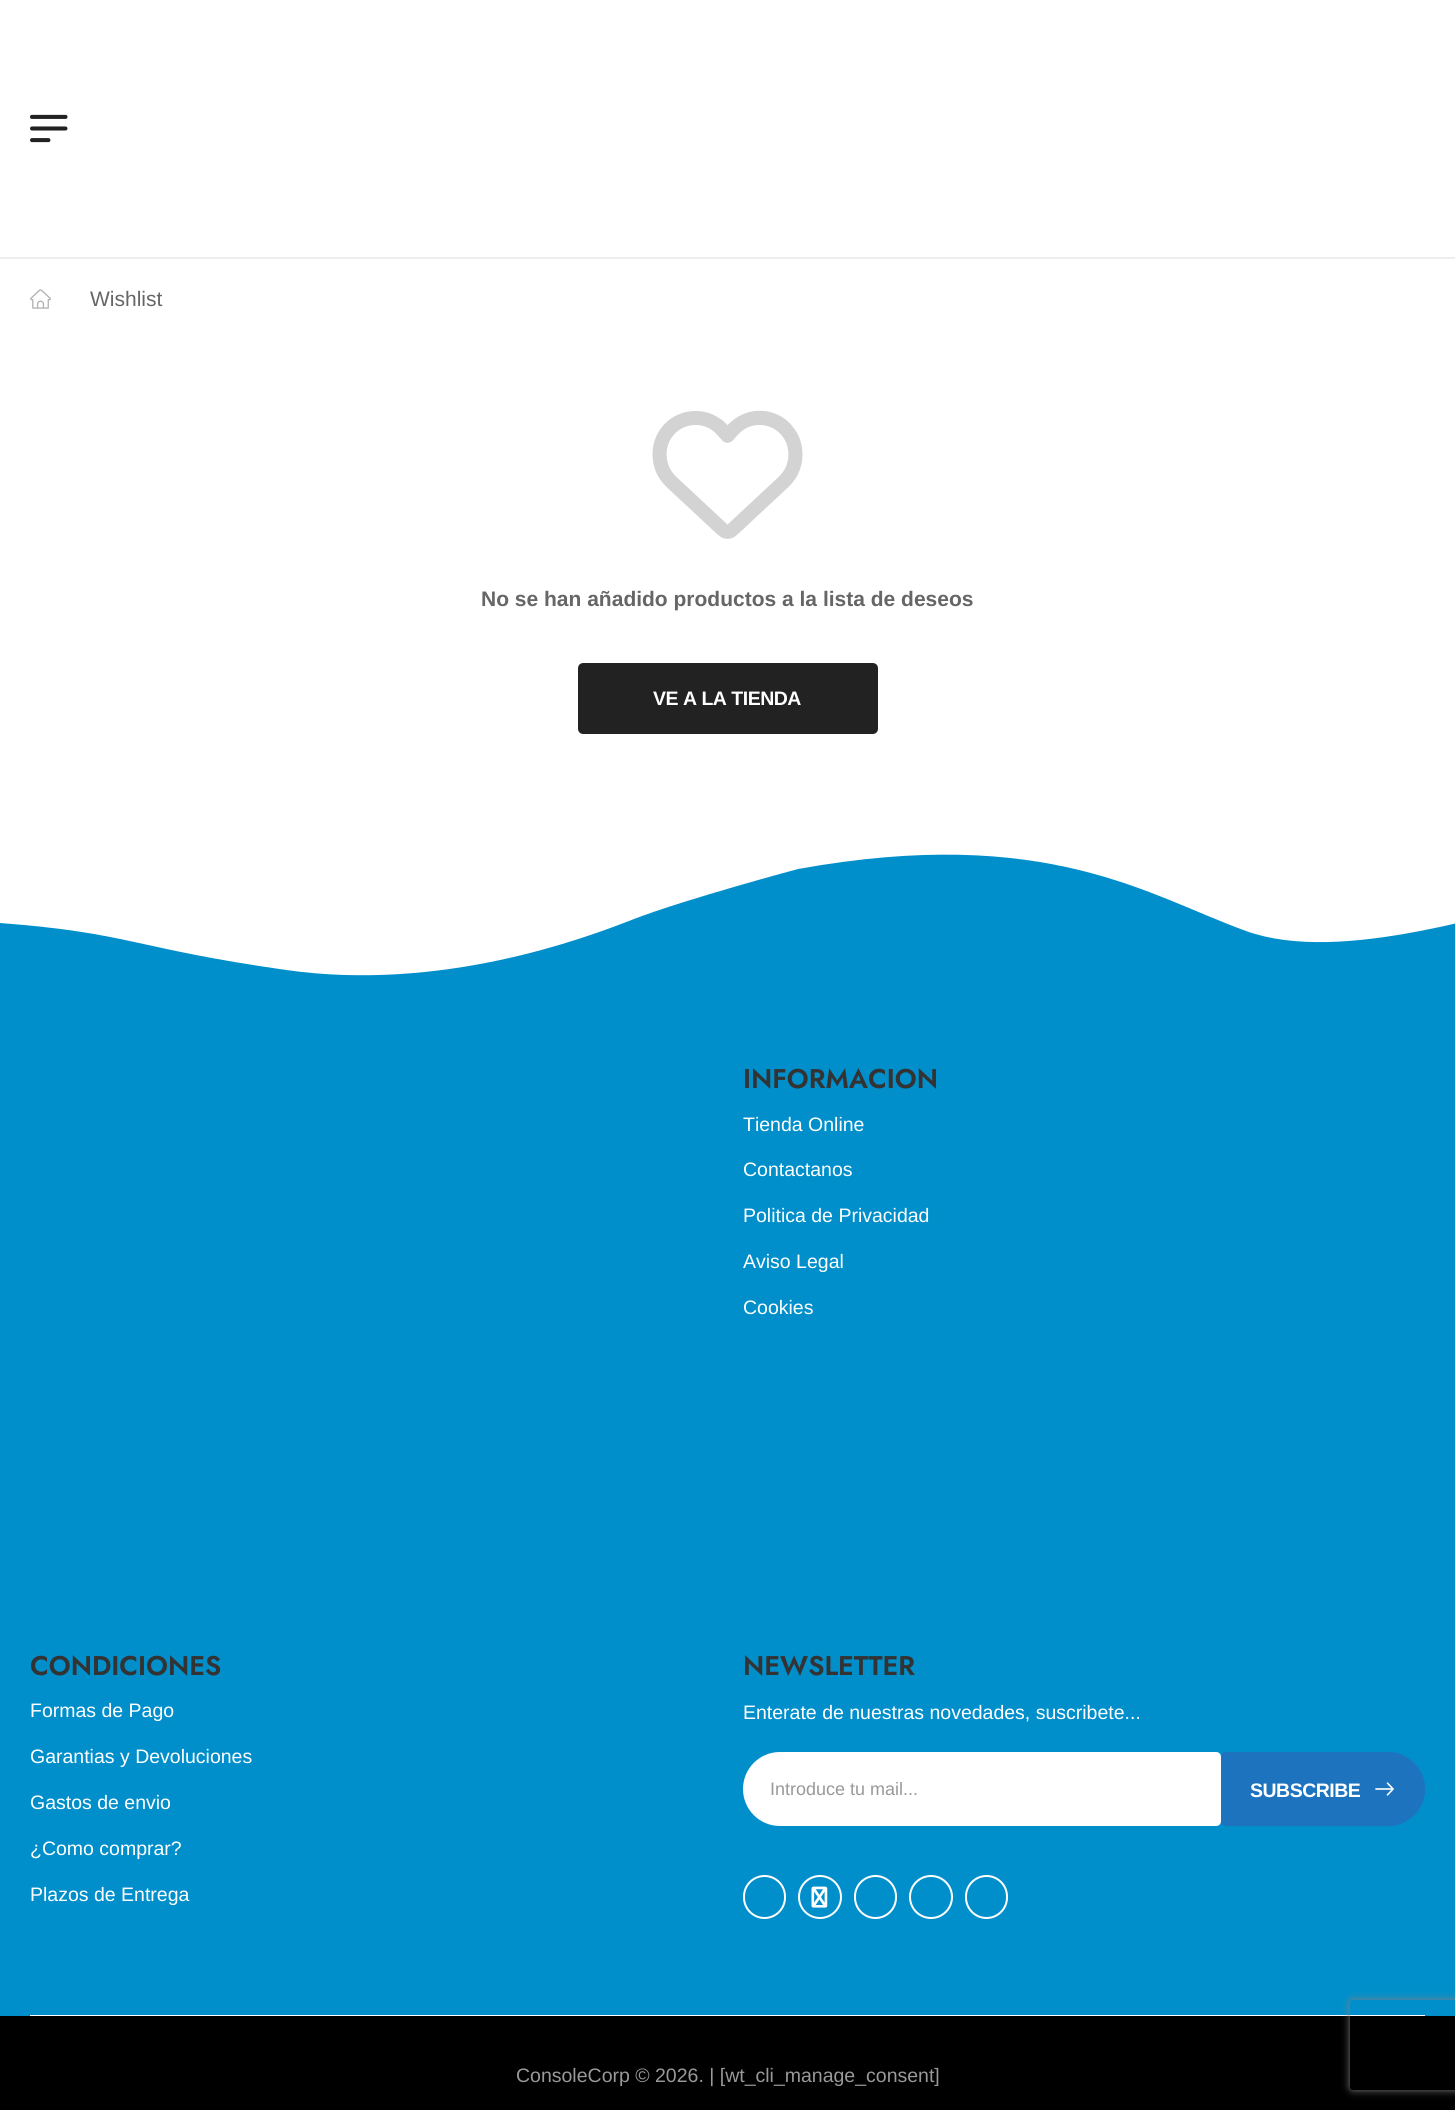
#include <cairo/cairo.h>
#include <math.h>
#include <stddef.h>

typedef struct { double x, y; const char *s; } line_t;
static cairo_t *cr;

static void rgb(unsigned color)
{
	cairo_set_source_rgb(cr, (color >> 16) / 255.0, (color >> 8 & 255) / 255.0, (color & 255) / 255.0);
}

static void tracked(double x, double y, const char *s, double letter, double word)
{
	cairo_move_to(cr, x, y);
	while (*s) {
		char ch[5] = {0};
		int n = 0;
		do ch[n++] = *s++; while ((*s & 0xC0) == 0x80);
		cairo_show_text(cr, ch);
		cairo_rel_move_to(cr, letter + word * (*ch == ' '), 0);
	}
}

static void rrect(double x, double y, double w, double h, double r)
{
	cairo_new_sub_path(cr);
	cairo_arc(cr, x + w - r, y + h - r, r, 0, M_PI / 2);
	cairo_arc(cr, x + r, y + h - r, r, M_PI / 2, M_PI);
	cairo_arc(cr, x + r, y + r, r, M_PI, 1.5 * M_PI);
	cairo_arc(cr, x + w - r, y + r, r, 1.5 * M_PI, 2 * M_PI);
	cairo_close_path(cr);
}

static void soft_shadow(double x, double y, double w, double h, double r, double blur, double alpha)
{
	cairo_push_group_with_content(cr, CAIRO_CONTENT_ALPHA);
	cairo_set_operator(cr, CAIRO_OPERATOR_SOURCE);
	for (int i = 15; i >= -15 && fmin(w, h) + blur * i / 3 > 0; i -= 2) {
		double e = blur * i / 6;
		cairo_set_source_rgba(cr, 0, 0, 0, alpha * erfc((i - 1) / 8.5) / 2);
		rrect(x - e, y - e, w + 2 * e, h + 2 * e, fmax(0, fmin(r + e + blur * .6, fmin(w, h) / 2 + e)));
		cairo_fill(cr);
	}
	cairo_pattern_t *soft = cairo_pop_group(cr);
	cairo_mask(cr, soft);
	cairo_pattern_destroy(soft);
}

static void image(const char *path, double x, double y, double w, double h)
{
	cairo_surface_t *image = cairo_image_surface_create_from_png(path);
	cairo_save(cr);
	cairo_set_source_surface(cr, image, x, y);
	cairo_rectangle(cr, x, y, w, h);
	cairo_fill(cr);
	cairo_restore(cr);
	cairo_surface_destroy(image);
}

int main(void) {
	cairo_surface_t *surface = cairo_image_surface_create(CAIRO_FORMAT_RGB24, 1455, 2110);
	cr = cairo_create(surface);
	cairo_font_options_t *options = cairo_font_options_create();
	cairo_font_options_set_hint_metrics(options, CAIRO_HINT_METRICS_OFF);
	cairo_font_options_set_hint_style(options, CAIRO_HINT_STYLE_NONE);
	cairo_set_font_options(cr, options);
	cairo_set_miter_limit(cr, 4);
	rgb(0xffffff);
	cairo_paint(cr);
	image("img/1.png", 30, 114, 38, 29);
	rgb(0xeeeeee);
	cairo_rectangle(cr, 0, 257, 1455, 2);
	cairo_fill(cr);
	image("img/2.png", 30, 289, 21, 20);
	image("img/3.png", 652, 410, 151, 129);
	rgb(0x222222);
	rrect(579.5, 664.5, 297, 68, 3.5);
	cairo_fill_preserve(cr);
	cairo_set_line_width(cr, 3);
	cairo_stroke(cr);
	rgb(0x008fcb);
	cairo_set_fill_rule(cr, CAIRO_FILL_RULE_EVEN_ODD);
	cairo_new_path(cr);
	cairo_move_to(cr, 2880, 1152);
	cairo_line_to(cr, 0, 1152);
	cairo_line_to(cr, 0, 923);
	cairo_curve_to(cr, 131, 933, 132, 948, 286, 970);
	cairo_curve_to(cr, 441, 992, 583, 939, 634, 919);
	cairo_curve_to(cr, 686, 899, 798, 869, 798, 869);
	cairo_curve_to(cr, 1047, 824, 1149, 896, 1246, 931);
	cairo_curve_to(cr, 1343, 966, 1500, 908, 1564, 899);
	cairo_curve_to(cr, 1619, 891, 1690, 887, 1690, 887);
	cairo_curve_to(cr, 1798, 898, 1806, 932, 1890, 954);
	cairo_curve_to(cr, 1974, 975, 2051, 930, 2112, 904);
	cairo_curve_to(cr, 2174, 877, 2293, 854, 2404, 852);
	cairo_curve_to(cr, 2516, 850, 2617, 881, 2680, 901);
	cairo_curve_to(cr, 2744, 920, 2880, 923, 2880, 923);
	cairo_close_path(cr);
	cairo_fill(cr);
	cairo_rectangle(cr, 0, 1152, 1455, 864);
	cairo_fill(cr);
	rgb(0xffffff);
	cairo_new_path(cr);
	cairo_move_to(cr, 780, 1752);
	cairo_line_to(cr, 1216, 1752);
	cairo_curve_to(cr, 1219, 1752, 1221, 1754, 1221, 1757);
	cairo_line_to(cr, 1221, 1821);
	cairo_curve_to(cr, 1221, 1824, 1219, 1826, 1216, 1826);
	cairo_line_to(cr, 780, 1826);
	cairo_curve_to(cr, 759.5, 1826, 743, 1809.5, 743, 1789);
	cairo_curve_to(cr, 743, 1768.5, 759.5, 1752, 780, 1752);
	cairo_close_path(cr);
	cairo_fill(cr);
	rgb(0x1e73be);
	cairo_new_path(cr);
	cairo_move_to(cr, 1226, 1752);
	cairo_line_to(cr, 1388, 1752);
	cairo_curve_to(cr, 1408.5, 1752, 1425, 1768.5, 1425, 1789);
	cairo_curve_to(cr, 1425, 1809.5, 1408.5, 1826, 1388, 1826);
	cairo_line_to(cr, 1226, 1826);
	cairo_curve_to(cr, 1223, 1826, 1221, 1824, 1221, 1821);
	cairo_line_to(cr, 1221, 1757);
	cairo_curve_to(cr, 1221, 1754, 1223, 1752, 1226, 1752);
	cairo_close_path(cr);
	cairo_fill(cr);
	cairo_new_path(cr);
	cairo_move_to(cr, 1226, 1752);
	cairo_curve_to(cr, 1223, 1752, 1221, 1754, 1221, 1757);
	cairo_line_to(cr, 1221, 1821);
	cairo_curve_to(cr, 1221, 1824, 1223, 1826, 1226, 1826);
	cairo_line_to(cr, 1388, 1826);
	cairo_curve_to(cr, 1393, 1826, 1398, 1825, 1403, 1823);
	cairo_line_to(cr, 1226, 1823);
	cairo_curve_to(cr, 1225, 1823, 1224, 1822, 1224, 1821);
	cairo_line_to(cr, 1224, 1757);
	cairo_curve_to(cr, 1224, 1756, 1225, 1755, 1226, 1755);
	cairo_line_to(cr, 1403, 1755);
	cairo_curve_to(cr, 1398, 1753, 1393, 1752, 1388, 1752);
	cairo_close_path(cr);
	cairo_move_to(cr, 1422, 1774);
	cairo_line_to(cr, 1422, 1804);
	cairo_curve_to(cr, 1426, 1794, 1426, 1784, 1422, 1774);
	cairo_close_path(cr);
	cairo_fill(cr);
	image("img/4.png", 1375, 1782, 19, 14);
	rrect(744, 1876, 41, 42, 20.5);
	rgb(0xffffff);
	cairo_set_line_width(cr, 2);
	cairo_stroke(cr);
	cairo_arc(cr, 820, 1897, 21, 0, 2 * M_PI);
	cairo_stroke(cr);
	image("img/5.png", 811, 1886, 17, 22);
	rrect(855, 1876, 41, 42, 20.5);
	cairo_stroke(cr);
	cairo_arc(cr, 931, 1897, 21, 0, 2 * M_PI);
	cairo_stroke(cr);
	rrect(966, 1876, 41, 42, 20.5);
	cairo_stroke(cr);
	cairo_rectangle(cr, 30, 2015, 1395, 1);
	cairo_fill(cr);
	rgb(0x000000);
	cairo_rectangle(cr, 0, 2016, 1455, 94);
	cairo_fill(cr);
	cairo_save(cr);
	cairo_new_path(cr);
	cairo_move_to(cr, 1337, 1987);
	cairo_line_to(cr, 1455, 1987);
	cairo_line_to(cr, 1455, 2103);
	cairo_line_to(cr, 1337, 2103);
	cairo_close_path(cr);
	cairo_move_to(cr, 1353, 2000);
	cairo_line_to(cr, 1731, 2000);
	cairo_curve_to(cr, 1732.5, 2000, 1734, 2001.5, 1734, 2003);
	cairo_line_to(cr, 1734, 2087);
	cairo_curve_to(cr, 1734, 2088.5, 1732.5, 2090, 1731, 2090);
	cairo_line_to(cr, 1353, 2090);
	cairo_curve_to(cr, 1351.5, 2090, 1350, 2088.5, 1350, 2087);
	cairo_line_to(cr, 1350, 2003);
	cairo_curve_to(cr, 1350, 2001.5, 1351.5, 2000, 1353, 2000);
	cairo_close_path(cr);
	cairo_clip(cr);
	rgb(0x808080);
	soft_shadow(1350, 2000, 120, 90, 3, 4, 1);
	cairo_restore(cr);
	cairo_select_font_face(cr, "Liberation Sans", CAIRO_FONT_SLANT_NORMAL, CAIRO_FONT_WEIGHT_NORMAL);
	cairo_set_font_size(cr, 21);
	rgb(0x666666);
	cairo_move_to(cr, 90, 306);
	cairo_show_text(cr, "Wishlist");
	cairo_select_font_face(cr, "Liberation Sans", CAIRO_FONT_SLANT_NORMAL, CAIRO_FONT_WEIGHT_BOLD);
	cairo_move_to(cr, 481, 606);
	cairo_show_text(cr, "No se han añadido productos a la lista de deseos");
	cairo_set_font_size(cr, 19.5);
	rgb(0xffffff);
	tracked(653, 705, "VE A LA TIENDA", -0.5, 0);
	cairo_select_font_face(cr, "Jost SemiBold", CAIRO_FONT_SLANT_NORMAL, CAIRO_FONT_WEIGHT_NORMAL);
	cairo_set_font_size(cr, 27);
	rgb(0x333333);
	cairo_move_to(cr, 743, 1088);
	cairo_show_text(cr, "INFORMACION");
	cairo_select_font_face(cr, "Liberation Sans", CAIRO_FONT_SLANT_NORMAL, CAIRO_FONT_WEIGHT_NORMAL);
	cairo_set_font_size(cr, 19.5);
	rgb(0xffffff);
	{
		static const line_t items[] = {
			{743, 1131, "Tienda Online"},
			{743, 1176, "Contactanos"},
			{743, 1222, "Politica de Privacidad"},
			{743, 1268, "Aviso Legal"},
			{743, 1314, "Cookies"},
		};
		for (size_t i = 0; i < sizeof items / sizeof *items; i++) {
			cairo_move_to(cr, items[i].x, items[i].y);
			cairo_show_text(cr, items[i].s);
		}
	}
	cairo_select_font_face(cr, "Jost SemiBold", CAIRO_FONT_SLANT_NORMAL, CAIRO_FONT_WEIGHT_NORMAL);
	cairo_set_font_size(cr, 27);
	rgb(0x333333);
	cairo_move_to(cr, 30, 1675);
	cairo_show_text(cr, "CONDICIONES");
	cairo_select_font_face(cr, "Liberation Sans", CAIRO_FONT_SLANT_NORMAL, CAIRO_FONT_WEIGHT_NORMAL);
	cairo_set_font_size(cr, 19.5);
	rgb(0xffffff);
	{
		static const line_t items[] = {
			{30, 1717, "Formas de Pago"},
			{30, 1763, "Garantias y Devoluciones"},
			{30, 1809, "Gastos de envio"},
			{30, 1855, "¿Como comprar?"},
			{30, 1901, "Plazos de Entrega"},
		};
		for (size_t i = 0; i < sizeof items / sizeof *items; i++) {
			cairo_move_to(cr, items[i].x, items[i].y);
			cairo_show_text(cr, items[i].s);
		}
	}
	cairo_select_font_face(cr, "Jost SemiBold", CAIRO_FONT_SLANT_NORMAL, CAIRO_FONT_WEIGHT_NORMAL);
	cairo_set_font_size(cr, 27);
	rgb(0x333333);
	cairo_move_to(cr, 743, 1675);
	cairo_show_text(cr, "NEWSLETTER");
	cairo_select_font_face(cr, "Liberation Sans", CAIRO_FONT_SLANT_NORMAL, CAIRO_FONT_WEIGHT_NORMAL);
	cairo_set_font_size(cr, 19.5);
	rgb(0xffffff);
	cairo_move_to(cr, 743, 1719);
	cairo_show_text(cr, "Enterate de nuestras novedades, suscribete...");
	cairo_set_font_size(cr, 18);
	rgb(0x999999);
	cairo_move_to(cr, 770, 1795);
	cairo_show_text(cr, "Introduce tu mail...");
	cairo_select_font_face(cr, "Liberation Sans", CAIRO_FONT_SLANT_NORMAL, CAIRO_FONT_WEIGHT_BOLD);
	cairo_set_font_size(cr, 19.5);
	rgb(0xffffff);
	tracked(1250, 1797, "SUBSCRIBE", -0.5, 0);
	cairo_select_font_face(cr, "Liberation Sans", CAIRO_FONT_SLANT_NORMAL, CAIRO_FONT_WEIGHT_NORMAL);
	rgb(0x999999);
	cairo_move_to(cr, 516, 2082);
	cairo_show_text(cr, "ConsoleCorp © 2026. | [wt_cli_manage_consent]");
	cairo_surface_write_to_png(surface, "page.png");
	cairo_font_options_destroy(options);
	cairo_destroy(cr);
	cairo_surface_destroy(surface);
	return 0;
}
